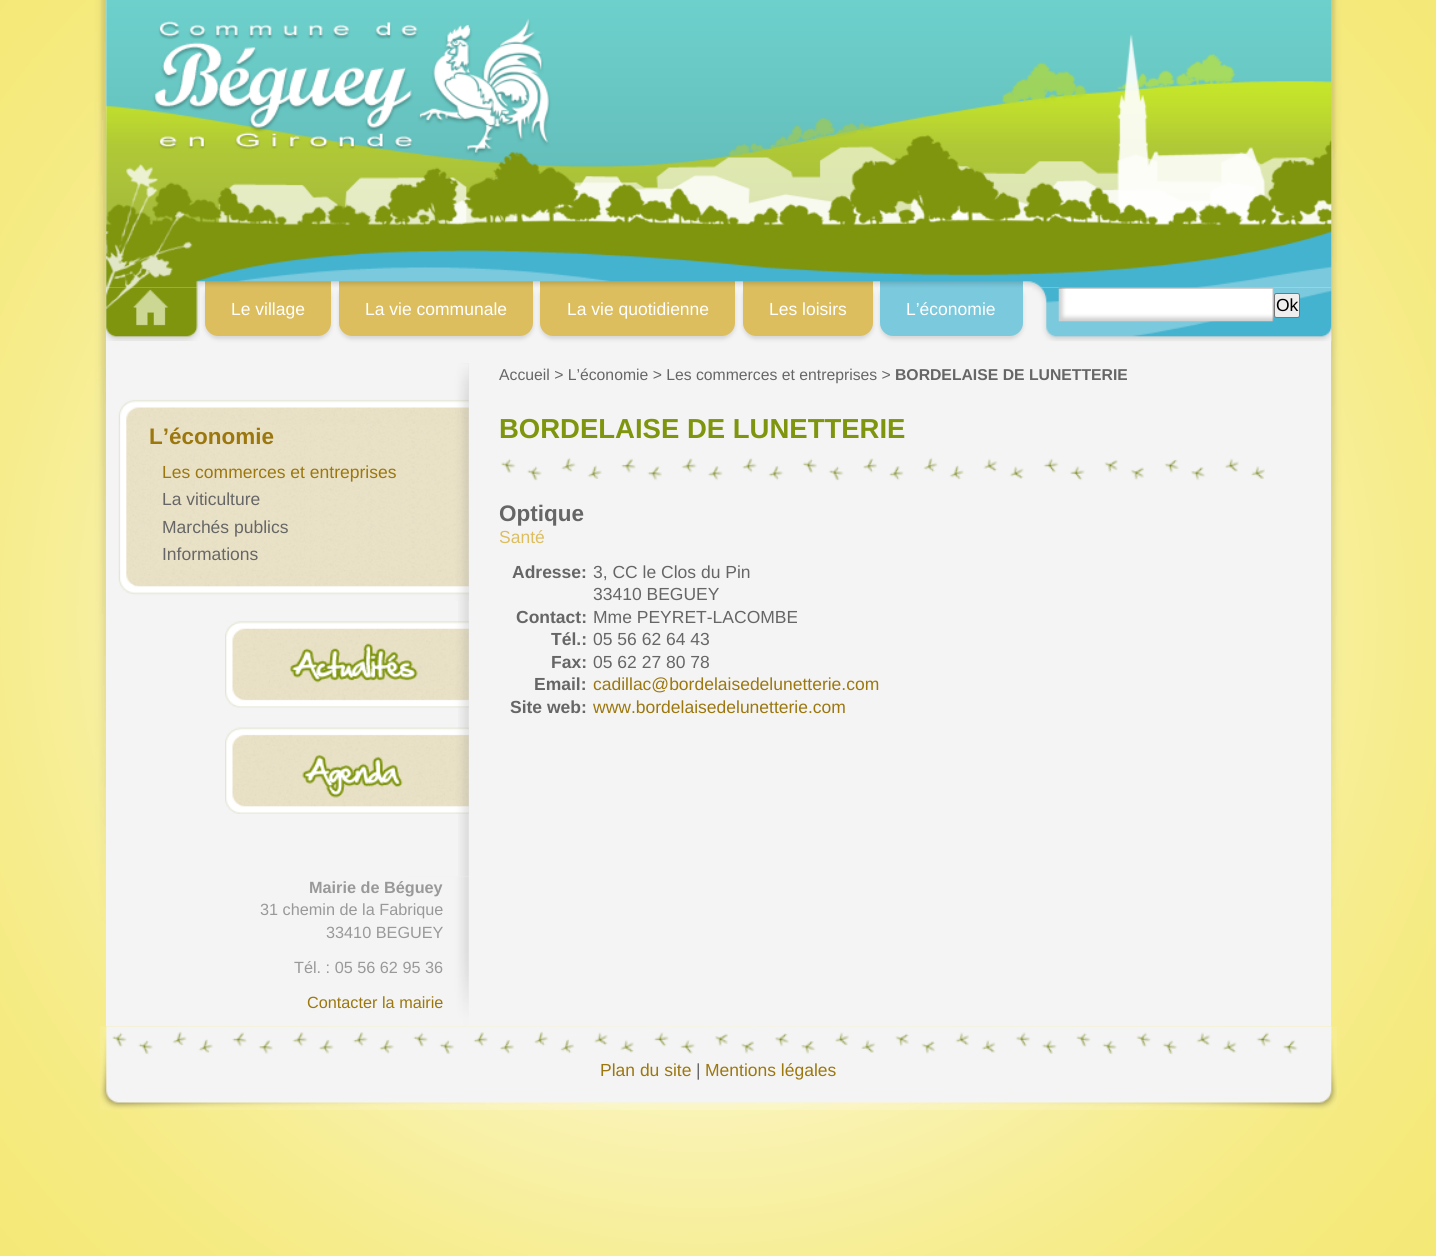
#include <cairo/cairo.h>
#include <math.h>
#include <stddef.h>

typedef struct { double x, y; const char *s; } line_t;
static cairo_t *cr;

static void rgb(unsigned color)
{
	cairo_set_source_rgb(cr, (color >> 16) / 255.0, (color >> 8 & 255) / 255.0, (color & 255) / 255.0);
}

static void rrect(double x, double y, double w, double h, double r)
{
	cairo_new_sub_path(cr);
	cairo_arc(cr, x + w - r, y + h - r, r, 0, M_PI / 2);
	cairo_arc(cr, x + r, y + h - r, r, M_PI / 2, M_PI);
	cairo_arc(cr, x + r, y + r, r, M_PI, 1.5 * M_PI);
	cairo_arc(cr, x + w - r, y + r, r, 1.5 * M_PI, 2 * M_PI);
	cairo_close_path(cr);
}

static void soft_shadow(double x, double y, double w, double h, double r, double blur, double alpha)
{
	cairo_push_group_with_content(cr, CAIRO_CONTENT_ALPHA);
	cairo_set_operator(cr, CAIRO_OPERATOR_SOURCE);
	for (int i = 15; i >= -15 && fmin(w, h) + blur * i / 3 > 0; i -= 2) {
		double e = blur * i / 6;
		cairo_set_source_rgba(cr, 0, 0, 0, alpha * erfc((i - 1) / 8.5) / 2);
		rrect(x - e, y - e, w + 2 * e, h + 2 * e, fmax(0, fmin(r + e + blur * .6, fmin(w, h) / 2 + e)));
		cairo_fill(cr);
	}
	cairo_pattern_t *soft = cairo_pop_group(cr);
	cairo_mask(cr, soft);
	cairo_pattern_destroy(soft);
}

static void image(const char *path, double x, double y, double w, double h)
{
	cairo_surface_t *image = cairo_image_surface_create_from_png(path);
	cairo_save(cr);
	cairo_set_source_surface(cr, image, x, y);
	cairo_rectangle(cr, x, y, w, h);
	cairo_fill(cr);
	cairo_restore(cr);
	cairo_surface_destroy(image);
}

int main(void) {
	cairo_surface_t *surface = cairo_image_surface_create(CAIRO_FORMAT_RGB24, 1436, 1256);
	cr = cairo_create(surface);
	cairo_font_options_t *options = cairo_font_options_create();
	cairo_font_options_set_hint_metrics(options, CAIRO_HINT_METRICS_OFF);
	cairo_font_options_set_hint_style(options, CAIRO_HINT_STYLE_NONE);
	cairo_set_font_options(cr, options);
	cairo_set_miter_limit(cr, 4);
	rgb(0xffffff);
	cairo_paint(cr);
	image("img/1.png", 0, 0, 1436, 1256);
	rgb(0xf4f4f4);
	cairo_rectangle(cr, 106, 0, 1225, 1026);
	cairo_fill(cr);
	image("img/3.png", 106, 287, 94, 54);
	rgb(0xd6d6d6);
	soft_shadow(205, 284, 126, 55, 13, 2, 1);
	rgb(0xdcbe5f);
	cairo_new_path(cr);
	cairo_move_to(cr, 205, 281);
	cairo_line_to(cr, 331, 281);
	cairo_line_to(cr, 331, 323);
	cairo_curve_to(cr, 331, 330, 325, 336, 318, 336);
	cairo_line_to(cr, 218, 336);
	cairo_curve_to(cr, 211, 336, 205, 330, 205, 323);
	cairo_close_path(cr);
	cairo_fill(cr);
	rgb(0xd6d6d6);
	soft_shadow(339, 284, 194, 55, 13, 2, 1);
	rgb(0xdcbe5f);
	cairo_new_path(cr);
	cairo_move_to(cr, 339, 281);
	cairo_line_to(cr, 533, 281);
	cairo_line_to(cr, 533, 323);
	cairo_curve_to(cr, 533, 330, 527, 336, 520, 336);
	cairo_line_to(cr, 352, 336);
	cairo_curve_to(cr, 345, 336, 339, 330, 339, 323);
	cairo_close_path(cr);
	cairo_fill(cr);
	rgb(0xd6d6d6);
	soft_shadow(540, 284, 195, 55, 13, 2, 1);
	rgb(0xdcbe5f);
	cairo_new_path(cr);
	cairo_move_to(cr, 540, 281);
	cairo_line_to(cr, 735, 281);
	cairo_line_to(cr, 735, 323);
	cairo_curve_to(cr, 735, 330, 729, 336, 722, 336);
	cairo_line_to(cr, 553, 336);
	cairo_curve_to(cr, 546, 336, 540, 330, 540, 323);
	cairo_close_path(cr);
	cairo_fill(cr);
	rgb(0xd6d6d6);
	soft_shadow(743, 284, 130, 55, 13, 2, 1);
	rgb(0xdcbe5f);
	cairo_new_path(cr);
	cairo_move_to(cr, 743, 281);
	cairo_line_to(cr, 873, 281);
	cairo_line_to(cr, 873, 323);
	cairo_curve_to(cr, 873, 330, 867, 336, 860, 336);
	cairo_line_to(cr, 756, 336);
	cairo_curve_to(cr, 749, 336, 743, 330, 743, 323);
	cairo_close_path(cr);
	cairo_fill(cr);
	rgb(0xd6d6d6);
	soft_shadow(880, 284, 143, 55, 13, 2, 1);
	rgb(0x7ac9dd);
	cairo_new_path(cr);
	cairo_move_to(cr, 880, 281);
	cairo_line_to(cr, 1023, 281);
	cairo_line_to(cr, 1023, 323);
	cairo_curve_to(cr, 1023, 330, 1017, 336, 1010, 336);
	cairo_line_to(cr, 893, 336);
	cairo_curve_to(cr, 886, 336, 880, 330, 880, 323);
	cairo_close_path(cr);
	cairo_fill(cr);
	image("img/4.png", 1032, 287, 300, 55);
	image("img/5.png", 1058, 287, 216, 35);
	image("img/2.png", 106, 0, 1226, 288);
	rgb(0xefefef);
	rrect(1274.5, 293.5, 25, 24, 2);
	cairo_fill_preserve(cr);
	rgb(0x767676);
	cairo_set_line_width(cr, 1);
	cairo_stroke(cr);
	image("img/6.png", 458, 363, 11, 513);
	image("img/7.png", 118, 364, 351, 61);
	image("img/8.png", 118, 425, 351, 145);
	image("img/9.png", 118, 570, 351, 31);
	image("img/10.png", 225, 621, 244, 87);
	image("img/11.png", 225, 727, 244, 87);
	image("img/12.png", 407, 876, 62, 151);
	image("img/13.png", 501, 457, 764, 24);
	image("img/14.png", 100, 1026, 1237, 84);
	cairo_select_font_face(cr, "Liberation Sans", CAIRO_FONT_SLANT_NORMAL, CAIRO_FONT_WEIGHT_NORMAL);
	cairo_set_font_size(cr, 17.5);
	rgb(0xffffff);
	{
		static const line_t items[] = {
			{231, 315, "Le village"},
			{365, 315, "La vie communale"},
			{567, 315, "La vie quotidienne"},
			{769, 315, "Les loisirs"},
			{906, 315, "L’économie"},
		};
		for (size_t i = 0; i < sizeof items / sizeof *items; i++) {
			cairo_move_to(cr, items[i].x, items[i].y);
			cairo_show_text(cr, items[i].s);
		}
	}
	rgb(0x000000);
	cairo_move_to(cr, 1276, 311);
	cairo_show_text(cr, "Ok");
	cairo_select_font_face(cr, "Liberation Sans", CAIRO_FONT_SLANT_NORMAL, CAIRO_FONT_WEIGHT_BOLD);
	cairo_set_font_size(cr, 22.5);
	rgb(0x9b770e);
	cairo_move_to(cr, 149, 444);
	cairo_show_text(cr, "L’économie");
	cairo_select_font_face(cr, "Liberation Sans", CAIRO_FONT_SLANT_NORMAL, CAIRO_FONT_WEIGHT_NORMAL);
	cairo_set_font_size(cr, 17.5);
	cairo_move_to(cr, 162, 478);
	cairo_show_text(cr, "Les commerces et entreprises");
	rgb(0x666666);
	{
		static const line_t items[] = {
			{162, 505, "La viticulture"},
			{162, 533, "Marchés publics"},
			{162, 560, "Informations"},
		};
		for (size_t i = 0; i < sizeof items / sizeof *items; i++) {
			cairo_move_to(cr, items[i].x, items[i].y);
			cairo_show_text(cr, items[i].s);
		}
	}
	cairo_select_font_face(cr, "Liberation Sans", CAIRO_FONT_SLANT_NORMAL, CAIRO_FONT_WEIGHT_BOLD);
	cairo_set_font_size(cr, 16.25);
	rgb(0x999999);
	cairo_move_to(cr, 309, 893);
	cairo_show_text(cr, "Mairie de Béguey");
	cairo_select_font_face(cr, "Liberation Sans", CAIRO_FONT_SLANT_NORMAL, CAIRO_FONT_WEIGHT_NORMAL);
	{
		static const line_t items[] = {
			{260, 915, "31 chemin de la Fabrique"},
			{326, 938, "33410 BEGUEY"},
			{294, 973, "Tél. : 05 56 62 95 36"},
		};
		for (size_t i = 0; i < sizeof items / sizeof *items; i++) {
			cairo_move_to(cr, items[i].x, items[i].y);
			cairo_show_text(cr, items[i].s);
		}
	}
	rgb(0x9b770e);
	cairo_move_to(cr, 307, 1008);
	cairo_show_text(cr, "Contacter la mairie");
	cairo_set_font_size(cr, 15.75);
	rgb(0x666666);
	cairo_move_to(cr, 499, 380);
	cairo_show_text(cr, "Accueil > L’économie > Les commerces et entreprises >");
	cairo_select_font_face(cr, "Liberation Sans", CAIRO_FONT_SLANT_NORMAL, CAIRO_FONT_WEIGHT_BOLD);
	cairo_move_to(cr, 895, 380);
	cairo_show_text(cr, "BORDELAISE DE LUNETTERIE");
	cairo_set_font_size(cr, 27.5);
	rgb(0x7e950d);
	cairo_move_to(cr, 499, 438);
	cairo_show_text(cr, "BORDELAISE DE LUNETTERIE");
	cairo_set_font_size(cr, 22.5);
	rgb(0x666666);
	cairo_move_to(cr, 499, 521);
	cairo_show_text(cr, "Optique");
	cairo_select_font_face(cr, "Liberation Sans", CAIRO_FONT_SLANT_NORMAL, CAIRO_FONT_WEIGHT_NORMAL);
	cairo_set_font_size(cr, 17.5);
	rgb(0xdcbe5f);
	cairo_move_to(cr, 499, 543);
	cairo_show_text(cr, "Santé");
	cairo_select_font_face(cr, "Liberation Sans", CAIRO_FONT_SLANT_NORMAL, CAIRO_FONT_WEIGHT_BOLD);
	rgb(0x666666);
	cairo_move_to(cr, 512, 578);
	cairo_show_text(cr, "Adresse:");
	cairo_select_font_face(cr, "Liberation Sans", CAIRO_FONT_SLANT_NORMAL, CAIRO_FONT_WEIGHT_NORMAL);
	cairo_move_to(cr, 593, 578);
	cairo_show_text(cr, "3, CC le Clos du Pin");
	cairo_move_to(cr, 593, 600);
	cairo_show_text(cr, "33410 BEGUEY");
	cairo_select_font_face(cr, "Liberation Sans", CAIRO_FONT_SLANT_NORMAL, CAIRO_FONT_WEIGHT_BOLD);
	cairo_move_to(cr, 516, 623);
	cairo_show_text(cr, "Contact:");
	cairo_select_font_face(cr, "Liberation Sans", CAIRO_FONT_SLANT_NORMAL, CAIRO_FONT_WEIGHT_NORMAL);
	cairo_move_to(cr, 593, 623);
	cairo_show_text(cr, "Mme PEYRET-LACOMBE");
	cairo_select_font_face(cr, "Liberation Sans", CAIRO_FONT_SLANT_NORMAL, CAIRO_FONT_WEIGHT_BOLD);
	cairo_move_to(cr, 551, 645);
	cairo_show_text(cr, "Tél.:");
	cairo_select_font_face(cr, "Liberation Sans", CAIRO_FONT_SLANT_NORMAL, CAIRO_FONT_WEIGHT_NORMAL);
	cairo_move_to(cr, 593, 645);
	cairo_show_text(cr, "05 56 62 64 43");
	cairo_select_font_face(cr, "Liberation Sans", CAIRO_FONT_SLANT_NORMAL, CAIRO_FONT_WEIGHT_BOLD);
	cairo_move_to(cr, 551, 668);
	cairo_show_text(cr, "Fax:");
	cairo_select_font_face(cr, "Liberation Sans", CAIRO_FONT_SLANT_NORMAL, CAIRO_FONT_WEIGHT_NORMAL);
	cairo_move_to(cr, 593, 668);
	cairo_show_text(cr, "05 62 27 80 78");
	cairo_select_font_face(cr, "Liberation Sans", CAIRO_FONT_SLANT_NORMAL, CAIRO_FONT_WEIGHT_BOLD);
	cairo_move_to(cr, 534, 690);
	cairo_show_text(cr, "Email:");
	cairo_select_font_face(cr, "Liberation Sans", CAIRO_FONT_SLANT_NORMAL, CAIRO_FONT_WEIGHT_NORMAL);
	rgb(0x9b770e);
	cairo_move_to(cr, 593, 690);
	cairo_show_text(cr, "cadillac@bordelaisedelunetterie.com");
	cairo_select_font_face(cr, "Liberation Sans", CAIRO_FONT_SLANT_NORMAL, CAIRO_FONT_WEIGHT_BOLD);
	rgb(0x666666);
	cairo_move_to(cr, 510, 713);
	cairo_show_text(cr, "Site web:");
	cairo_select_font_face(cr, "Liberation Sans", CAIRO_FONT_SLANT_NORMAL, CAIRO_FONT_WEIGHT_NORMAL);
	rgb(0x9b770e);
	cairo_move_to(cr, 593, 713);
	cairo_show_text(cr, "www.bordelaisedelunetterie.com");
	cairo_move_to(cr, 600, 1076);
	cairo_show_text(cr, "Plan du site");
	rgb(0x666666);
	cairo_move_to(cr, 696, 1076);
	cairo_show_text(cr, "|");
	rgb(0x9b770e);
	cairo_move_to(cr, 705, 1076);
	cairo_show_text(cr, "Mentions légales");
	cairo_surface_write_to_png(surface, "page.png");
	cairo_font_options_destroy(options);
	cairo_destroy(cr);
	cairo_surface_destroy(surface);
	return 0;
}
